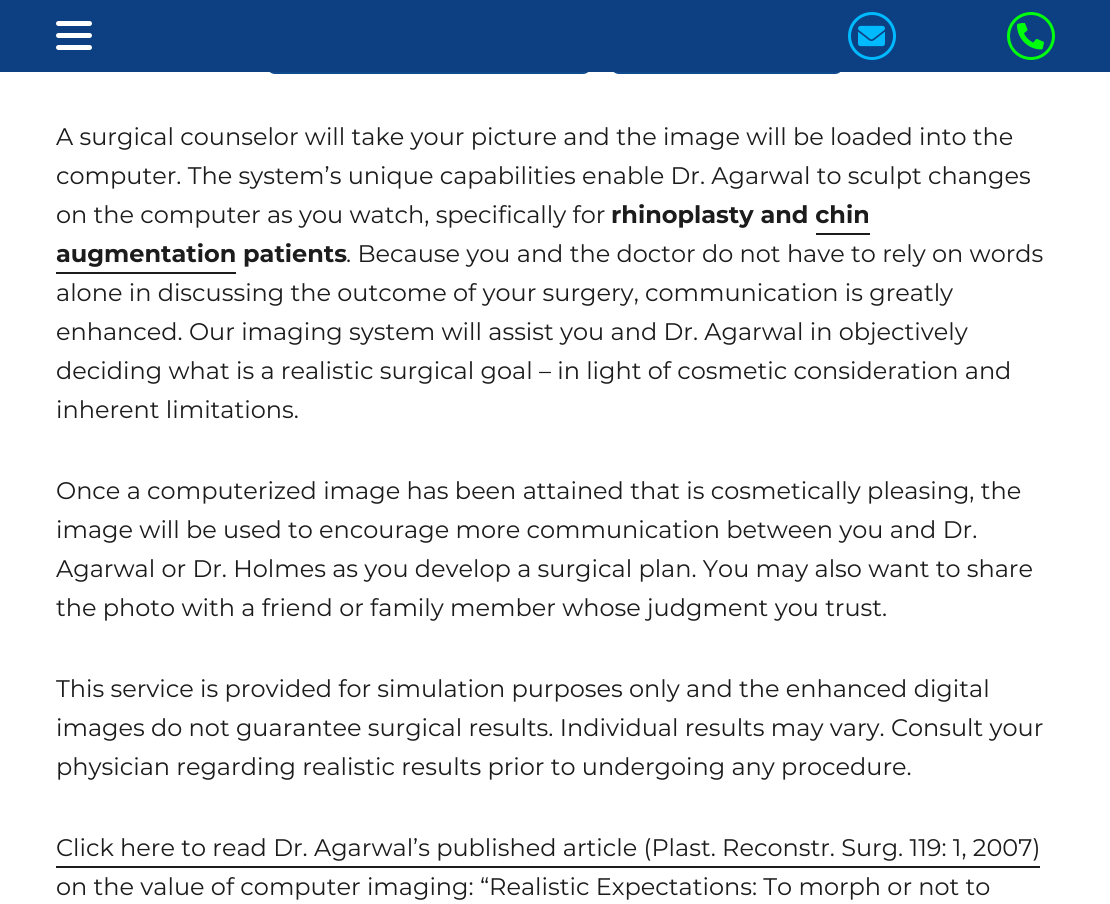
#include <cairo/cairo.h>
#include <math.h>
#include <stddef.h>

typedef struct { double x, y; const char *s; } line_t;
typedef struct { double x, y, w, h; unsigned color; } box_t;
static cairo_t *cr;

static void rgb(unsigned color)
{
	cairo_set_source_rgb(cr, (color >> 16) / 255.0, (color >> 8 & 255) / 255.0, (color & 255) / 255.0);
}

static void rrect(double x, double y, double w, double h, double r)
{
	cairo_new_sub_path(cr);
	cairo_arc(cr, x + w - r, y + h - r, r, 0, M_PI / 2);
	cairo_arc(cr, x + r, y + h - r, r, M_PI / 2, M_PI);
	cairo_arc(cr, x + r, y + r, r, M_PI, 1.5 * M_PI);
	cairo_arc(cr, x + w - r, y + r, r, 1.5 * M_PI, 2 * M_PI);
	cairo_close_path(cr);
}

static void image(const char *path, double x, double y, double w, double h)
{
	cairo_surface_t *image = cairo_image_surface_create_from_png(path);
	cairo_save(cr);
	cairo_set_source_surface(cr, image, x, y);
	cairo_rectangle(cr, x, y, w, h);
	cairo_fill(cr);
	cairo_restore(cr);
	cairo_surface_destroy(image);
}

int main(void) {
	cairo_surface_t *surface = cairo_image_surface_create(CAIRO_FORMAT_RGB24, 1110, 904);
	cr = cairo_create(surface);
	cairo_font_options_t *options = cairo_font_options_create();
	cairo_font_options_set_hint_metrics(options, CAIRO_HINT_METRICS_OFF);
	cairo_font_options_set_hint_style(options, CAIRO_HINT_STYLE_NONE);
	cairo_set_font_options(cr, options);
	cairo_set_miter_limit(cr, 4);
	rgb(0xffffff);
	cairo_paint(cr);
	rgb(0x114b8d);
	rrect(267, 0, 324, 74, 8);
	cairo_fill(cr);
	rrect(611, 0, 232, 74, 8);
	cairo_fill(cr);
	rgb(0x0d4083);
	cairo_rectangle(cr, 0, 0, 1110, 72);
	cairo_fill(cr);
	rgb(0xffffff);
	rrect(56, 21, 36, 5, 2.5);
	cairo_fill(cr);
	rrect(56, 33, 36, 5, 2.5);
	cairo_fill(cr);
	rrect(56, 45, 36, 5, 2.5);
	cairo_fill(cr);
	cairo_arc(cr, 872, 36, 22.5, 0, 2 * M_PI);
	rgb(0x00baff);
	cairo_set_line_width(cr, 3);
	cairo_stroke(cr);
	image("img/1.png", 858, 25, 27, 22);
	cairo_arc(cr, 1031, 36, 22.5, 0, 2 * M_PI);
	rgb(0x00ff0c);
	cairo_stroke(cr);
	image("img/2.png", 1017, 23, 27, 27);
	{
		static const box_t items[] = {
			{816, 233, 54, 2, 0x1c1c1c},
			{56, 272, 180, 2, 0x1c1c1c},
			{56, 866, 984, 2, 0x1c1c1c},
		};
		for (size_t i = 0; i < sizeof items / sizeof *items; i++) {
			rgb(items[i].color);
			cairo_rectangle(cr, items[i].x, items[i].y, items[i].w, items[i].h);
			cairo_fill(cr);
		}
	}
	cairo_select_font_face(cr, "Montserrat", CAIRO_FONT_SLANT_NORMAL, CAIRO_FONT_WEIGHT_NORMAL);
	cairo_set_font_size(cr, 24);
	{
		static const line_t items[] = {
			{56, 145, "A surgical counselor will take your picture and the image will be loaded into the"},
			{56, 184, "computer. The system’s unique capabilities enable Dr. Agarwal to sculpt changes"},
			{56, 223, "on the computer as you watch, specifically for"},
		};
		for (size_t i = 0; i < sizeof items / sizeof *items; i++) {
			cairo_move_to(cr, items[i].x, items[i].y);
			cairo_show_text(cr, items[i].s);
		}
	}
	cairo_select_font_face(cr, "Montserrat", CAIRO_FONT_SLANT_NORMAL, CAIRO_FONT_WEIGHT_BOLD);
	cairo_move_to(cr, 611, 223);
	cairo_show_text(cr, "rhinoplasty and chin");
	cairo_move_to(cr, 56, 262);
	cairo_show_text(cr, "augmentation patients");
	cairo_select_font_face(cr, "Montserrat", CAIRO_FONT_SLANT_NORMAL, CAIRO_FONT_WEIGHT_NORMAL);
	{
		static const line_t items[] = {
			{346, 262, ". Because you and the doctor do not have to rely on words"},
			{56, 301, "alone in discussing the outcome of your surgery, communication is greatly"},
			{56, 340, "enhanced. Our imaging system will assist you and Dr. Agarwal in objectively"},
			{56, 379, "deciding what is a realistic surgical goal – in light of cosmetic consideration and"},
			{56, 418, "inherent limitations."},
			{56, 499, "Once a computerized image has been attained that is cosmetically pleasing, the"},
			{56, 538, "image will be used to encourage more communication between you and Dr."},
			{56, 577, "Agarwal or Dr. Holmes as you develop a surgical plan. You may also want to share"},
			{56, 616, "the photo with a friend or family member whose judgment you trust."},
			{56, 697, "This service is provided for simulation purposes only and the enhanced digital"},
			{56, 736, "images do not guarantee surgical results. Individual results may vary. Consult your"},
			{56, 775, "physician regarding realistic results prior to undergoing any procedure."},
			{56, 856, "Click here to read Dr. Agarwal’s published article (Plast. Reconstr. Surg. 119: 1, 2007)"},
			{56, 895, "on the value of computer imaging: “Realistic Expectations: To morph or not to"},
		};
		for (size_t i = 0; i < sizeof items / sizeof *items; i++) {
			cairo_move_to(cr, items[i].x, items[i].y);
			cairo_show_text(cr, items[i].s);
		}
	}
	cairo_surface_write_to_png(surface, "page.png");
	cairo_font_options_destroy(options);
	cairo_destroy(cr);
	cairo_surface_destroy(surface);
	return 0;
}
